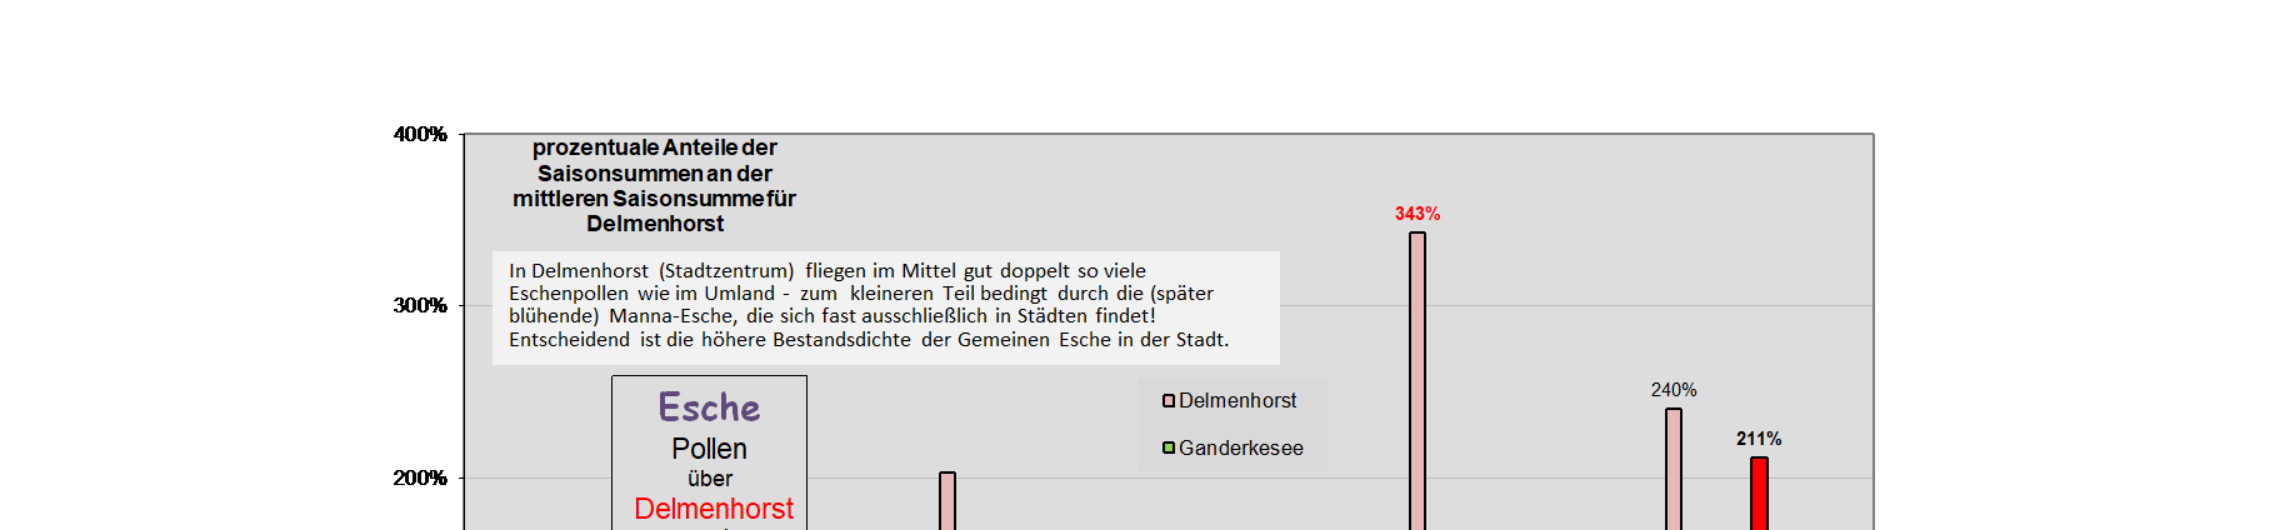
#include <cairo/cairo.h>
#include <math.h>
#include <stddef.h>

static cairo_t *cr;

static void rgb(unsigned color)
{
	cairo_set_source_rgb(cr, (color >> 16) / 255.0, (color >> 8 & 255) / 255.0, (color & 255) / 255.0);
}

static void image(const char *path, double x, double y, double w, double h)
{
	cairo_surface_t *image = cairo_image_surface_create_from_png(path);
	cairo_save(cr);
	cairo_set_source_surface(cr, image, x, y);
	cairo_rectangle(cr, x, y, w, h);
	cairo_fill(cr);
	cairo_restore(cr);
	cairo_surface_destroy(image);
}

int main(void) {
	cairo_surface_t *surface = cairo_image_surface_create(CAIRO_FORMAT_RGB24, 2277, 530);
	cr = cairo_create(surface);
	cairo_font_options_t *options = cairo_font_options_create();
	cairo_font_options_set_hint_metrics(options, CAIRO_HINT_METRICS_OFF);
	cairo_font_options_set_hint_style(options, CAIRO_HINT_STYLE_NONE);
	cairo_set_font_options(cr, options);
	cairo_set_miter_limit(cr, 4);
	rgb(0xffffff);
	cairo_paint(cr);
	image("img/1.png", 393, 126, 1483, 404);
	cairo_surface_write_to_png(surface, "page.png");
	cairo_font_options_destroy(options);
	cairo_destroy(cr);
	cairo_surface_destroy(surface);
	return 0;
}
